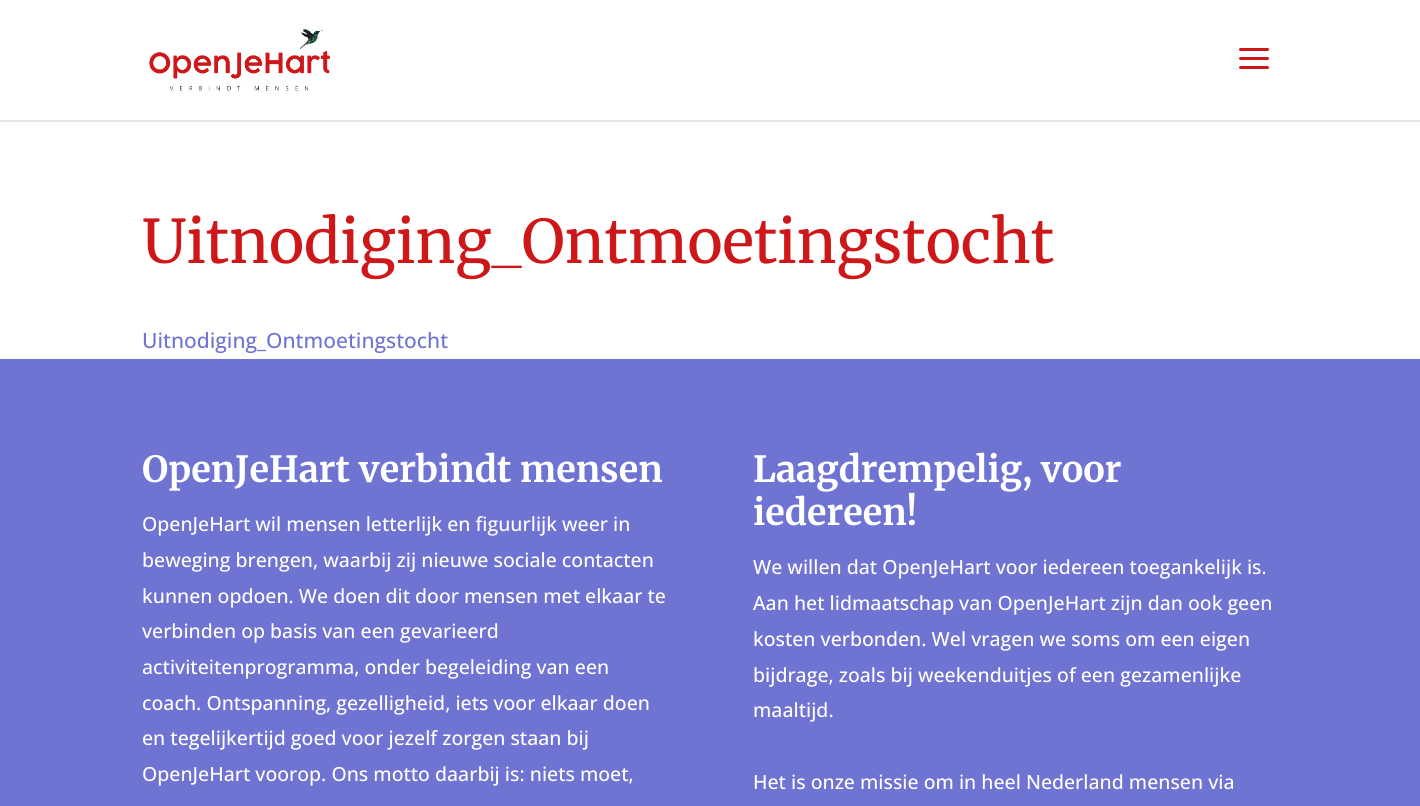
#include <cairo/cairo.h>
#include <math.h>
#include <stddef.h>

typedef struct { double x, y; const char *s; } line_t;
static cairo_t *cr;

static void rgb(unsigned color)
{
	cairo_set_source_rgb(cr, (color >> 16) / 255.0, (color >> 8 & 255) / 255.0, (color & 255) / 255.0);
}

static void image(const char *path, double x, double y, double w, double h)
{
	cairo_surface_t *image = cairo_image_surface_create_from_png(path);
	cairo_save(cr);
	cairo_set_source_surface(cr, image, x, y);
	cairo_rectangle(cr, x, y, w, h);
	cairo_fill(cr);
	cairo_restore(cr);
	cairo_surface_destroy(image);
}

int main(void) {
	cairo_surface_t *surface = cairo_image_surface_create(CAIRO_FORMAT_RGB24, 1420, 806);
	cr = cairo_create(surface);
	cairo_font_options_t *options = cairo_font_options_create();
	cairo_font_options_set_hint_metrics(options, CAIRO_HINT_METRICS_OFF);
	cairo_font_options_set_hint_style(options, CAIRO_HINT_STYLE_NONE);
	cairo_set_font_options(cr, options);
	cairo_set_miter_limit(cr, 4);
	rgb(0xffffff);
	cairo_paint(cr);
	rgb(0xe6e6e6);
	cairo_new_path(cr);
	cairo_move_to(cr, 0, 120);
	cairo_line_to(cr, 0, 122);
	cairo_line_to(cr, 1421, 122);
	cairo_line_to(cr, 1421, 2);
	cairo_line_to(cr, 1420, 2);
	cairo_line_to(cr, 1420, 120);
	cairo_close_path(cr);
	cairo_fill(cr);
	image("img/1.png", 149, 29, 181, 62);
	image("img/2.png", 1239, 48, 30, 21);
	rgb(0x6f73d2);
	cairo_rectangle(cr, 0, 359, 1420, 447);
	cairo_fill(cr);
	cairo_select_font_face(cr, "Merriweather", CAIRO_FONT_SLANT_NORMAL, CAIRO_FONT_WEIGHT_NORMAL);
	cairo_set_font_size(cr, 60);
	rgb(0xcd1719);
	cairo_move_to(cr, 142, 263);
	cairo_show_text(cr, "Uitnodiging_Ontmoetingstocht");
	cairo_select_font_face(cr, "Open Sans Medium", CAIRO_FONT_SLANT_NORMAL, CAIRO_FONT_WEIGHT_NORMAL);
	cairo_set_font_size(cr, 21);
	rgb(0x6f73d2);
	cairo_move_to(cr, 142, 348);
	cairo_show_text(cr, "Uitnodiging_Ontmoetingstocht");
	cairo_select_font_face(cr, "Merriweather", CAIRO_FONT_SLANT_NORMAL, CAIRO_FONT_WEIGHT_BOLD);
	cairo_set_font_size(cr, 36);
	rgb(0xffffff);
	cairo_move_to(cr, 142, 482);
	cairo_show_text(cr, "OpenJeHart verbindt mensen");
	cairo_select_font_face(cr, "Open Sans Medium", CAIRO_FONT_SLANT_NORMAL, CAIRO_FONT_WEIGHT_NORMAL);
	cairo_set_font_size(cr, 19.5);
	{
		static const line_t items[] = {
			{142, 531, "OpenJeHart wil mensen letterlijk en figuurlijk weer in"},
			{142, 567, "beweging brengen, waarbij zij nieuwe sociale contacten"},
			{142, 603, "kunnen opdoen. We doen dit door mensen met elkaar te"},
			{142, 638, "verbinden op basis van een gevarieerd"},
			{142, 674, "activiteitenprogramma, onder begeleiding van een"},
			{142, 710, "coach. Ontspanning, gezelligheid, iets voor elkaar doen"},
			{142, 745, "en tegelijkertijd goed voor jezelf zorgen staan bij"},
			{142, 781, "OpenJeHart voorop. Ons motto daarbij is: niets moet,"},
		};
		for (size_t i = 0; i < sizeof items / sizeof *items; i++) {
			cairo_move_to(cr, items[i].x, items[i].y);
			cairo_show_text(cr, items[i].s);
		}
	}
	cairo_select_font_face(cr, "Merriweather", CAIRO_FONT_SLANT_NORMAL, CAIRO_FONT_WEIGHT_BOLD);
	cairo_set_font_size(cr, 36);
	cairo_move_to(cr, 753, 482);
	cairo_show_text(cr, "Laagdrempelig, voor");
	cairo_move_to(cr, 753, 525);
	cairo_show_text(cr, "iedereen!");
	cairo_select_font_face(cr, "Open Sans Medium", CAIRO_FONT_SLANT_NORMAL, CAIRO_FONT_WEIGHT_NORMAL);
	cairo_set_font_size(cr, 19.5);
	{
		static const line_t items[] = {
			{753, 574, "We willen dat OpenJeHart voor iedereen toegankelijk is."},
			{753, 610, "Aan het lidmaatschap van OpenJeHart zijn dan ook geen"},
			{753, 646, "kosten verbonden. Wel vragen we soms om een eigen"},
			{753, 682, "bijdrage, zoals bij weekenduitjes of een gezamenlijke"},
			{753, 717, "maaltijd."},
			{753, 789, "Het is onze missie om in heel Nederland mensen via"},
		};
		for (size_t i = 0; i < sizeof items / sizeof *items; i++) {
			cairo_move_to(cr, items[i].x, items[i].y);
			cairo_show_text(cr, items[i].s);
		}
	}
	cairo_surface_write_to_png(surface, "page.png");
	cairo_font_options_destroy(options);
	cairo_destroy(cr);
	cairo_surface_destroy(surface);
	return 0;
}
